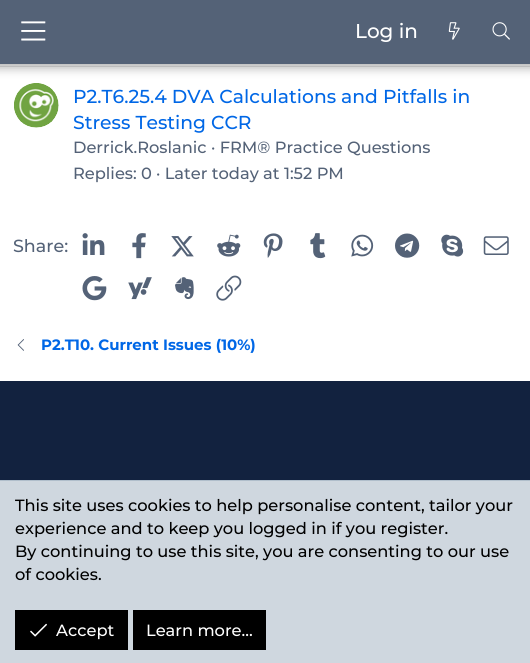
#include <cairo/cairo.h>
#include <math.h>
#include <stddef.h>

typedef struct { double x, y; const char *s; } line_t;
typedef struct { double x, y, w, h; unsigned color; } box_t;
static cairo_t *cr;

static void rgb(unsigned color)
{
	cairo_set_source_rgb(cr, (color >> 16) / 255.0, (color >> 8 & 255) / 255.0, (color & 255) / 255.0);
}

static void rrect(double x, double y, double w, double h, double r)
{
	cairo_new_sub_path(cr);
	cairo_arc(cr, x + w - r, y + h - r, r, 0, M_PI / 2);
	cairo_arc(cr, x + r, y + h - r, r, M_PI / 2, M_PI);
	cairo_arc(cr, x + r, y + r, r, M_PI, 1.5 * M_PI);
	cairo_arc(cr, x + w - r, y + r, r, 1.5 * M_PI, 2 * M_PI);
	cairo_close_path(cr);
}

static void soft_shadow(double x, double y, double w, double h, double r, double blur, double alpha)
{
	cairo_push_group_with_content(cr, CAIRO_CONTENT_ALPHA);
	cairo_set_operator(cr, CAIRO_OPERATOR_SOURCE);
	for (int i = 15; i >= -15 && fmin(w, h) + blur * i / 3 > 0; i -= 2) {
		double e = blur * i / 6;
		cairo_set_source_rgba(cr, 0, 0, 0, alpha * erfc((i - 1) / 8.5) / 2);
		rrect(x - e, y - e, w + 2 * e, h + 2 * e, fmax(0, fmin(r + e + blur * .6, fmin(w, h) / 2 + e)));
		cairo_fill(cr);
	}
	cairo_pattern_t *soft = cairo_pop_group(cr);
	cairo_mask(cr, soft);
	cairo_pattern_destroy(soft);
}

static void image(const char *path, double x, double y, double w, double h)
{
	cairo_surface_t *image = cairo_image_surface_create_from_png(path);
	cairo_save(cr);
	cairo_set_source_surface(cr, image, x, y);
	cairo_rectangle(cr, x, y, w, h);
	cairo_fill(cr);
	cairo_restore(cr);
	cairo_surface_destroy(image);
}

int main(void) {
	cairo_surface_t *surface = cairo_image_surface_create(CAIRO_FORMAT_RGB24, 530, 663);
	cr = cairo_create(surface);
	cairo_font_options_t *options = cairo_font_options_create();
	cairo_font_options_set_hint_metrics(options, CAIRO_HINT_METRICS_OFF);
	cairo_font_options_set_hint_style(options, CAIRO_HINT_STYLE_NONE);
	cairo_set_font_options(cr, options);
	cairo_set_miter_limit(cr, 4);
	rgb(0xffffff);
	cairo_paint(cr);
	rgb(0xe7e7e7);
	cairo_rectangle(cr, 0, 66, 530, 1);
	cairo_fill(cr);
	image("img/4.png", 14, 83, 45, 45);
	rgb(0x000000);
	soft_shadow(-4, -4, 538, 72, 0, 5, 0.3);
	rgb(0x546277);
	cairo_rectangle(cr, 0, 0, 530, 64);
	cairo_fill(cr);
	image("img/1.png", 21, 21, 25, 20);
	image("img/2.png", 448, 22, 12, 18);
	image("img/3.png", 492, 22, 18, 18);
	image("img/5.png", 82, 233, 23, 22);
	image("img/6.png", 132, 233, 14, 26);
	image("img/7.png", 171, 236, 23, 21);
	image("img/8.png", 217, 234, 24, 23);
	image("img/9.png", 263, 233, 20, 25);
	image("img/10.png", 310, 233, 16, 26);
	image("img/11.png", 351, 234, 23, 23);
	image("img/12.png", 395, 233, 25, 25);
	image("img/13.png", 441, 234, 23, 23);
	image("img/14.png", 483, 236, 26, 19);
	image("img/15.png", 82, 276, 25, 25);
	image("img/16.png", 128, 277, 24, 23);
	image("img/17.png", 175, 277, 19, 23);
	image("img/18.png", 216, 275, 26, 26);
	image("img/19.png", 17, 339, 7, 12);
	{
		static const box_t items[] = {
			{0, 381, 530, 99, 0x12223f},
			{0, 481, 530, 182, 0xcfd7df},
			{0, 480, 530, 1, 0xb0becb},
			{15, 610, 113, 40, 0x000000},
		};
		for (size_t i = 0; i < sizeof items / sizeof *items; i++) {
			rgb(items[i].color);
			cairo_rectangle(cr, items[i].x, items[i].y, items[i].w, items[i].h);
			cairo_fill(cr);
		}
	}
	image("img/20.png", 30, 623, 17, 14);
	cairo_rectangle(cr, 133, 610, 133, 40);
	cairo_fill(cr);
	cairo_select_font_face(cr, "Montserrat Medium", CAIRO_FONT_SLANT_NORMAL, CAIRO_FONT_WEIGHT_NORMAL);
	cairo_set_font_size(cr, 20);
	rgb(0xffffff);
	cairo_move_to(cr, 355, 38);
	cairo_show_text(cr, "Log in");
	cairo_set_font_size(cr, 18.75);
	rgb(0x0067e6);
	cairo_move_to(cr, 73, 103);
	cairo_show_text(cr, "P2.T6.25.4 DVA Calculations and Pitfalls in");
	cairo_move_to(cr, 73, 129);
	cairo_show_text(cr, "Stress Testing CCR");
	cairo_set_font_size(cr, 16.25);
	rgb(0x546277);
	{
		static const line_t items[] = {
			{73, 153, "Derrick.Roslanic · FRM® Practice Questions"},
			{73, 179, "Replies: 0"},
			{156, 179, "· Later today at 1:52 PM"},
		};
		for (size_t i = 0; i < sizeof items / sizeof *items; i++) {
			cairo_move_to(cr, items[i].x, items[i].y);
			cairo_show_text(cr, items[i].s);
		}
	}
	cairo_set_font_size(cr, 17.5);
	cairo_move_to(cr, 13, 252);
	cairo_show_text(cr, "Share:");
	cairo_select_font_face(cr, "Montserrat", CAIRO_FONT_SLANT_NORMAL, CAIRO_FONT_WEIGHT_BOLD);
	cairo_set_font_size(cr, 15);
	rgb(0x0067e6);
	cairo_move_to(cr, 41, 350);
	cairo_show_text(cr, "P2.T10. Current Issues (10%)");
	cairo_select_font_face(cr, "Montserrat Medium", CAIRO_FONT_SLANT_NORMAL, CAIRO_FONT_WEIGHT_NORMAL);
	cairo_set_font_size(cr, 16.25);
	rgb(0x000000);
	{
		static const line_t items[] = {
			{15, 511, "This site uses cookies to help personalise content, tailor your"},
			{15, 534, "experience and to keep you logged in if you register."},
			{15, 557, "By continuing to use this site, you are consenting to our use"},
			{15, 580, "of cookies."},
		};
		for (size_t i = 0; i < sizeof items / sizeof *items; i++) {
			cairo_move_to(cr, items[i].x, items[i].y);
			cairo_show_text(cr, items[i].s);
		}
	}
	rgb(0xffffff);
	cairo_move_to(cr, 56, 636);
	cairo_show_text(cr, "Accept");
	cairo_move_to(cr, 146, 636);
	cairo_show_text(cr, "Learn more…");
	cairo_surface_write_to_png(surface, "page.png");
	cairo_font_options_destroy(options);
	cairo_destroy(cr);
	cairo_surface_destroy(surface);
	return 0;
}
